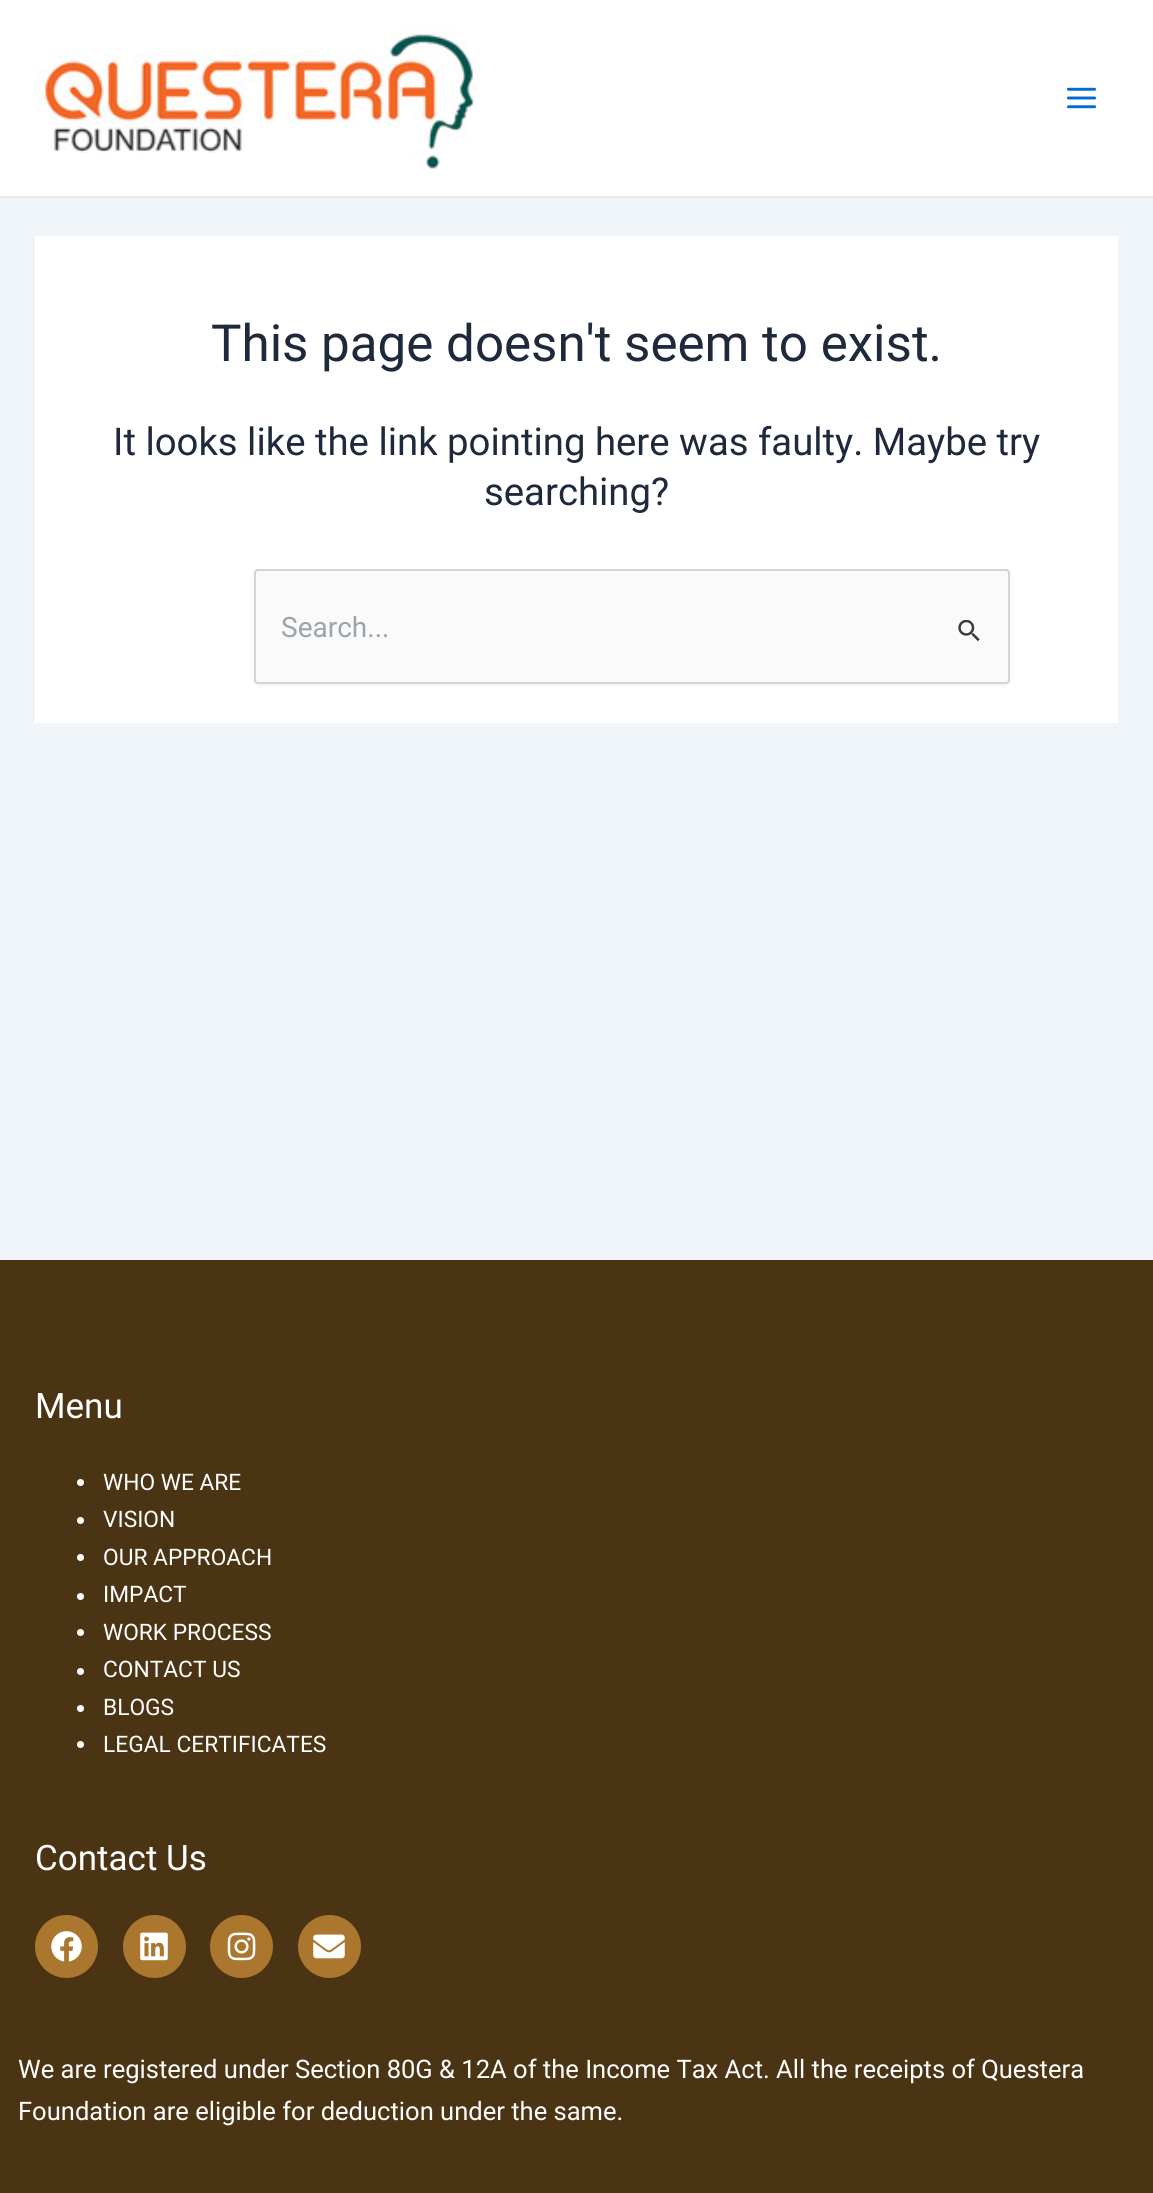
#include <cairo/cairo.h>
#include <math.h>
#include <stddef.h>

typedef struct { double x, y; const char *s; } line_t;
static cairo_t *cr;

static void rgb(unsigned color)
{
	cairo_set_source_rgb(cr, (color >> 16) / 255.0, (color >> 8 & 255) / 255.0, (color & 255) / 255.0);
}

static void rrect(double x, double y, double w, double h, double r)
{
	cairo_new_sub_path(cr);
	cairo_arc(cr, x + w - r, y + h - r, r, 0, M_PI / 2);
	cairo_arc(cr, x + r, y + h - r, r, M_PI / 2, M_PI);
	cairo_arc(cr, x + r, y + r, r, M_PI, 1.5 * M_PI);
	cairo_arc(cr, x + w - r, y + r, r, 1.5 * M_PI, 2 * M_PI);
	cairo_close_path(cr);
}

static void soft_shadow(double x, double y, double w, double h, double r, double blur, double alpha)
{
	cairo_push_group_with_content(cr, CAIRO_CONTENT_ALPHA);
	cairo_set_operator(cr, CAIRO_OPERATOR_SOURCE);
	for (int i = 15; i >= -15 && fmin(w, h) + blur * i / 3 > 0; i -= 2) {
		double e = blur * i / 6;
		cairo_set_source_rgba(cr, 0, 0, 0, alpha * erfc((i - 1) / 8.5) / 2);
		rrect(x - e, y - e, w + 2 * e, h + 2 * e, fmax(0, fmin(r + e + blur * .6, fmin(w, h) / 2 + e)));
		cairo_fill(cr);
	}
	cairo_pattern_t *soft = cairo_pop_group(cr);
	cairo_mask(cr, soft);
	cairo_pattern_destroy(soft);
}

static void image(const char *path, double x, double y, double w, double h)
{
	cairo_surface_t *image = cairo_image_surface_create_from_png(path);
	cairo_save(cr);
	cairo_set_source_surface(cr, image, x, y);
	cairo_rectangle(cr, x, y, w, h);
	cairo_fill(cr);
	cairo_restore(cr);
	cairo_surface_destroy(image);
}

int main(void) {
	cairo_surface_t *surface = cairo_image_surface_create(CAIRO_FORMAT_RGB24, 1153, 2193);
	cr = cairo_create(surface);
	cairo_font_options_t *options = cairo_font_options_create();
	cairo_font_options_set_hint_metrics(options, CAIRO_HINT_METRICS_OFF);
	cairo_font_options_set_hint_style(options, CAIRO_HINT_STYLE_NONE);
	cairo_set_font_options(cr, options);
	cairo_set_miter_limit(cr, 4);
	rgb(0xf0f5fa);
	cairo_paint(cr);
	rgb(0xffffff);
	cairo_rectangle(cr, 0, 0, 1153, 196);
	cairo_fill(cr);
	rgb(0xeaeaea);
	cairo_rectangle(cr, 0, 196, 1153, 2);
	cairo_fill(cr);
	image("img/1.png", 35, 26, 441, 143);
	image("img/2.png", 1066, 87, 31, 22);
	rgb(0xffffff);
	cairo_rectangle(cr, 35, 236, 1083, 487);
	cairo_fill(cr);
	rgb(0x000000);
	soft_shadow(254, 571, 756, 115, 4, 2, 0.05);
	rgb(0xfafafa);
	rrect(255, 570, 754, 113, 3);
	cairo_fill_preserve(cr);
	rgb(0xd1d5db);
	cairo_stroke(cr);
	image("img/3.png", 958, 620, 22, 22);
	rgb(0x4a3414);
	cairo_rectangle(cr, 0, 1260, 1153, 933);
	cairo_fill(cr);
	rgb(0xffffff);
	cairo_arc(cr, 80.5, 1482.5, 3.5, 0, 2 * M_PI);
	cairo_fill(cr);
	cairo_arc(cr, 80.5, 1520.5, 3.5, 0, 2 * M_PI);
	cairo_fill(cr);
	cairo_arc(cr, 80.5, 1557.5, 3.5, 0, 2 * M_PI);
	cairo_fill(cr);
	cairo_arc(cr, 80.5, 1596.5, 3.5, 0, 2 * M_PI);
	cairo_fill(cr);
	cairo_arc(cr, 80.5, 1632.5, 3.5, 0, 2 * M_PI);
	cairo_fill(cr);
	cairo_arc(cr, 80.5, 1671.5, 3.5, 0, 2 * M_PI);
	cairo_fill(cr);
	cairo_arc(cr, 80.5, 1708.5, 3.5, 0, 2 * M_PI);
	cairo_fill(cr);
	cairo_arc(cr, 80.5, 1744.5, 3.5, 0, 2 * M_PI);
	cairo_fill(cr);
	rgb(0xab772e);
	cairo_arc(cr, 66.5, 1946.5, 31.5, 0, 2 * M_PI);
	cairo_fill(cr);
	image("img/4.png", 51, 1931, 31, 31);
	cairo_arc(cr, 154.5, 1946.5, 31.5, 0, 2 * M_PI);
	cairo_fill(cr);
	image("img/5.png", 140, 1932, 28, 29);
	cairo_arc(cr, 241.5, 1946.5, 31.5, 0, 2 * M_PI);
	cairo_fill(cr);
	image("img/6.png", 227, 1932, 29, 29);
	cairo_arc(cr, 329.5, 1946.5, 31.5, 0, 2 * M_PI);
	cairo_fill(cr);
	image("img/7.png", 313, 1934, 32, 25);
	cairo_select_font_face(cr, "Roboto", CAIRO_FONT_SLANT_NORMAL, CAIRO_FONT_WEIGHT_NORMAL);
	cairo_set_font_size(cr, 51.1);
	rgb(0x1e293b);
	cairo_move_to(cr, 211, 361);
	cairo_show_text(cr, "This page doesn't seem to exist.");
	cairo_set_font_size(cr, 38.3);
	cairo_move_to(cr, 113, 455);
	cairo_show_text(cr, "It looks like the link pointing here was faulty. Maybe try");
	cairo_move_to(cr, 484, 505);
	cairo_show_text(cr, "searching?");
	cairo_set_font_size(cr, 28);
	rgb(0x9ca3af);
	cairo_move_to(cr, 281, 637);
	cairo_show_text(cr, "Search...");
	cairo_set_font_size(cr, 35);
	rgb(0xffffff);
	cairo_move_to(cr, 35, 1418);
	cairo_show_text(cr, "Menu");
	cairo_set_font_size(cr, 22.75);
	{
		static const line_t items[] = {
			{103, 1490, "WHO WE ARE"},
			{103, 1527, "VISION"},
			{103, 1565, "OUR APPROACH"},
			{103, 1602, "IMPACT"},
			{103, 1640, "WORK PROCESS"},
			{103, 1677, "CONTACT US"},
			{103, 1715, "BLOGS"},
			{103, 1752, "LEGAL CERTIFICATES"},
		};
		for (size_t i = 0; i < sizeof items / sizeof *items; i++) {
			cairo_move_to(cr, items[i].x, items[i].y);
			cairo_show_text(cr, items[i].s);
		}
	}
	cairo_set_font_size(cr, 35);
	cairo_move_to(cr, 35, 1870);
	cairo_show_text(cr, "Contact Us");
	cairo_set_font_size(cr, 25.55);
	cairo_move_to(cr, 18, 2078);
	cairo_show_text(cr, "We are registered under Section 80G & 12A of the Income Tax Act. All the receipts of Questera");
	cairo_move_to(cr, 18, 2120);
	cairo_show_text(cr, "Foundation are eligible for deduction under the same.");
	cairo_surface_write_to_png(surface, "page.png");
	cairo_font_options_destroy(options);
	cairo_destroy(cr);
	cairo_surface_destroy(surface);
	return 0;
}
